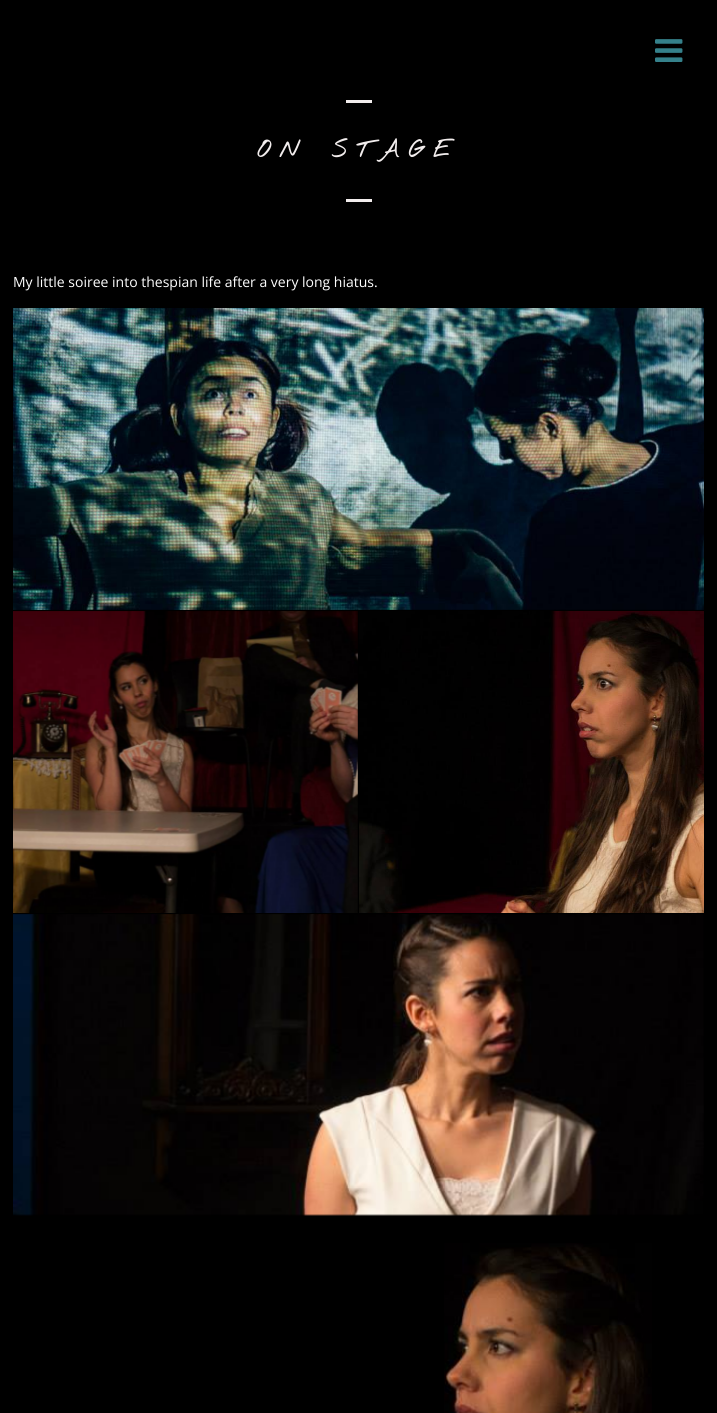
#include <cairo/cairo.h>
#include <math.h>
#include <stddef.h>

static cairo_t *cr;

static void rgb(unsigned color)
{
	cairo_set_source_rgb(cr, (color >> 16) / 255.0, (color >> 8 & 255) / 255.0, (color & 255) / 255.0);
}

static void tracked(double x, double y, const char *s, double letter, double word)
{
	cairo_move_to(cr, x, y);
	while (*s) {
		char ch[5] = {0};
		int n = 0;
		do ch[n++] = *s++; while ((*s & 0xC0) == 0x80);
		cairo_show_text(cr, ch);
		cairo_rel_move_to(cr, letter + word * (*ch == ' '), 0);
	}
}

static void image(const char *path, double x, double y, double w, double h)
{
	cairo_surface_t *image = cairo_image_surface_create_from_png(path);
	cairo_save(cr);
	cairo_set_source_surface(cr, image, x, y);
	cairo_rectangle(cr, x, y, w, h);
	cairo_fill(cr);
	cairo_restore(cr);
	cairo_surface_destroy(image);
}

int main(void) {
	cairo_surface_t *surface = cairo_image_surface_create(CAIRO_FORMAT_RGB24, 717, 1413);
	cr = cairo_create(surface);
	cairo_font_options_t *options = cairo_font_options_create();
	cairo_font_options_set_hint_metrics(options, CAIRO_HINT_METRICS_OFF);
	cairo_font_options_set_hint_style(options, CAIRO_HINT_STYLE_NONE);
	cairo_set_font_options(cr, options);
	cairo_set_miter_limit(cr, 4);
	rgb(0x000000);
	cairo_paint(cr);
	image("img/1.png", 655, 39, 28, 23);
	rgb(0xf2eded);
	cairo_rectangle(cr, 346, 100, 26, 3);
	cairo_fill(cr);
	cairo_rectangle(cr, 346, 199, 26, 3);
	cairo_fill(cr);
	image("img/2.png", 13, 308, 691, 302);
	image("img/3.png", 13, 611, 345, 302);
	image("img/4.png", 359, 611, 345, 302);
	image("img/5.png", 13, 914, 691, 302);
	image("img/6.png", 444, 1243, 208, 170);
	cairo_select_font_face(cr, "Nothing You Could Do", CAIRO_FONT_SLANT_NORMAL, CAIRO_FONT_WEIGHT_BOLD);
	cairo_set_font_size(cr, 24);
	tracked(257, 157, "ON STAGE", 10, 0);
	cairo_select_font_face(cr, "Open Sans", CAIRO_FONT_SLANT_NORMAL, CAIRO_FONT_WEIGHT_NORMAL);
	cairo_set_font_size(cr, 14);
	rgb(0xffffff);
	cairo_move_to(cr, 13, 287);
	cairo_show_text(cr, "My little soiree into thespian life after a very long hiatus.");
	cairo_surface_write_to_png(surface, "page.png");
	cairo_font_options_destroy(options);
	cairo_destroy(cr);
	cairo_surface_destroy(surface);
	return 0;
}
